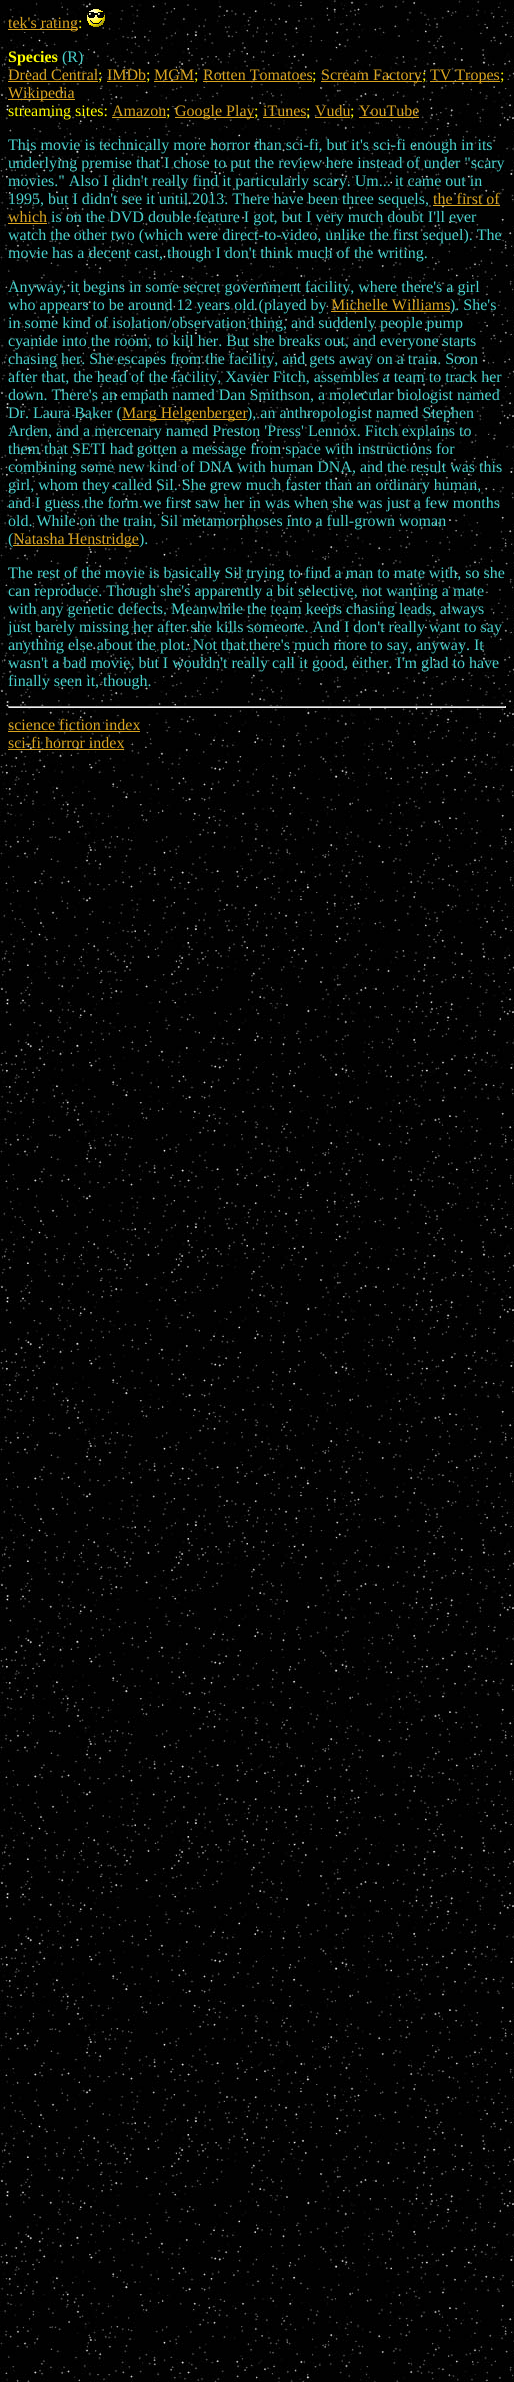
#include <cairo/cairo.h>
#include <math.h>
#include <stddef.h>

typedef struct { double x, y; const char *s; } line_t;
typedef struct { double x, y, w, h; unsigned color; } box_t;
static cairo_t *cr;

static void rgb(unsigned color)
{
	cairo_set_source_rgb(cr, (color >> 16) / 255.0, (color >> 8 & 255) / 255.0, (color & 255) / 255.0);
}

static void image(const char *path, double x, double y, double w, double h)
{
	cairo_surface_t *image = cairo_image_surface_create_from_png(path);
	cairo_save(cr);
	cairo_set_source_surface(cr, image, x, y);
	cairo_rectangle(cr, x, y, w, h);
	cairo_fill(cr);
	cairo_restore(cr);
	cairo_surface_destroy(image);
}

int main(void) {
	cairo_surface_t *surface = cairo_image_surface_create(CAIRO_FORMAT_RGB24, 514, 2382);
	cr = cairo_create(surface);
	cairo_font_options_t *options = cairo_font_options_create();
	cairo_font_options_set_hint_metrics(options, CAIRO_HINT_METRICS_OFF);
	cairo_font_options_set_hint_style(options, CAIRO_HINT_STYLE_NONE);
	cairo_set_font_options(cr, options);
	cairo_set_miter_limit(cr, 4);
	rgb(0xffffff);
	cairo_paint(cr);
	image("img/1.png", 0, 0, 514, 2382);
	rgb(0xdaa520);
	cairo_rectangle(cr, 8, 29, 70, 1);
	cairo_fill(cr);
	image("img/2.png", 87, 9, 18, 18);
	{
		static const box_t items[] = {
			{8, 81, 90, 1, 0xdaa520},
			{107, 81, 39, 1, 0xdaa520},
			{154, 81, 40, 1, 0xdaa520},
			{203, 81, 109, 1, 0xdaa520},
			{321, 81, 101, 1, 0xdaa520},
			{430, 81, 70, 1, 0xdaa520},
			{8, 99, 67, 1, 0xdaa520},
			{112, 117, 54, 1, 0xdaa520},
			{175, 117, 79, 1, 0xdaa520},
			{263, 117, 43, 1, 0xdaa520},
			{315, 117, 35, 1, 0xdaa520},
			{359, 117, 60, 1, 0xdaa520},
			{433, 205, 67, 1, 0xdaa520},
			{8, 223, 39, 1, 0xdaa520},
			{331, 311, 119, 1, 0xdaa520},
			{122, 419, 125, 1, 0xdaa520},
			{13, 545, 126, 1, 0xdaa520},
			{8, 706, 498, 1, 0x9f9f9f},
			{505, 706, 1, 2, 0xeeeeee},
			{8, 707, 498, 1, 0xeeeeee},
			{8, 706, 1, 2, 0x9f9f9f},
			{8, 731, 132, 1, 0xdaa520},
			{8, 749, 116, 1, 0xdaa520},
		};
		for (size_t i = 0; i < sizeof items / sizeof *items; i++) {
			rgb(items[i].color);
			cairo_rectangle(cr, items[i].x, items[i].y, items[i].w, items[i].h);
			cairo_fill(cr);
		}
	}
	cairo_select_font_face(cr, "Liberation Serif", CAIRO_FONT_SLANT_NORMAL, CAIRO_FONT_WEIGHT_NORMAL);
	cairo_set_font_size(cr, 16);
	cairo_move_to(cr, 8, 28);
	cairo_show_text(cr, "tek's rating");
	rgb(0xffff00);
	cairo_move_to(cr, 78, 28);
	cairo_show_text(cr, ":");
	cairo_select_font_face(cr, "Liberation Serif", CAIRO_FONT_SLANT_NORMAL, CAIRO_FONT_WEIGHT_BOLD);
	cairo_move_to(cr, 8, 62);
	cairo_show_text(cr, "Species");
	cairo_select_font_face(cr, "Liberation Serif", CAIRO_FONT_SLANT_NORMAL, CAIRO_FONT_WEIGHT_NORMAL);
	rgb(0x48d1cc);
	cairo_move_to(cr, 62, 62);
	cairo_show_text(cr, "(R)");
	rgb(0xdaa520);
	cairo_move_to(cr, 8, 80);
	cairo_show_text(cr, "Dread Central");
	rgb(0xffff00);
	cairo_move_to(cr, 98, 80);
	cairo_show_text(cr, ";");
	rgb(0xdaa520);
	cairo_move_to(cr, 107, 80);
	cairo_show_text(cr, "IMDb");
	rgb(0xffff00);
	cairo_move_to(cr, 146, 80);
	cairo_show_text(cr, ";");
	rgb(0xdaa520);
	cairo_move_to(cr, 154, 80);
	cairo_show_text(cr, "MGM");
	rgb(0xffff00);
	cairo_move_to(cr, 194, 80);
	cairo_show_text(cr, ";");
	rgb(0xdaa520);
	cairo_move_to(cr, 203, 80);
	cairo_show_text(cr, "Rotten Tomatoes");
	rgb(0xffff00);
	cairo_move_to(cr, 312, 80);
	cairo_show_text(cr, ";");
	rgb(0xdaa520);
	cairo_move_to(cr, 321, 80);
	cairo_show_text(cr, "Scream Factory");
	rgb(0xffff00);
	cairo_move_to(cr, 422, 80);
	cairo_show_text(cr, ";");
	rgb(0xdaa520);
	cairo_move_to(cr, 430, 80);
	cairo_show_text(cr, "TV Tropes");
	rgb(0xffff00);
	cairo_move_to(cr, 500, 80);
	cairo_show_text(cr, ";");
	rgb(0xdaa520);
	cairo_move_to(cr, 8, 98);
	cairo_show_text(cr, "Wikipedia");
	rgb(0xffff00);
	cairo_move_to(cr, 8, 116);
	cairo_show_text(cr, "streaming sites:");
	rgb(0xdaa520);
	cairo_move_to(cr, 112, 116);
	cairo_show_text(cr, "Amazon");
	rgb(0xffff00);
	cairo_move_to(cr, 166, 116);
	cairo_show_text(cr, ";");
	rgb(0xdaa520);
	cairo_move_to(cr, 175, 116);
	cairo_show_text(cr, "Google Play");
	rgb(0xffff00);
	cairo_move_to(cr, 254, 116);
	cairo_show_text(cr, ";");
	rgb(0xdaa520);
	cairo_move_to(cr, 263, 116);
	cairo_show_text(cr, "iTunes");
	rgb(0xffff00);
	cairo_move_to(cr, 306, 116);
	cairo_show_text(cr, ";");
	rgb(0xdaa520);
	cairo_move_to(cr, 315, 116);
	cairo_show_text(cr, "Vudu");
	rgb(0xffff00);
	cairo_move_to(cr, 350, 116);
	cairo_show_text(cr, ";");
	rgb(0xdaa520);
	cairo_move_to(cr, 359, 116);
	cairo_show_text(cr, "YouTube");
	rgb(0x48d1cc);
	{
		static const line_t items[] = {
			{8, 150, "This movie is technically more horror than sci-fi, but it's sci-fi enough in its"},
			{8, 168, "underlying premise that I chose to put the review here instead of under \"scary"},
			{8, 186, "movies.\" Also I didn't really find it particularly scary. Um... it came out in"},
			{8, 204, "1995, but I didn't see it until 2013. There have been three sequels,"},
		};
		for (size_t i = 0; i < sizeof items / sizeof *items; i++) {
			cairo_move_to(cr, items[i].x, items[i].y);
			cairo_show_text(cr, items[i].s);
		}
	}
	rgb(0xdaa520);
	cairo_move_to(cr, 433, 204);
	cairo_show_text(cr, "the first of");
	cairo_move_to(cr, 8, 222);
	cairo_show_text(cr, "which");
	rgb(0x48d1cc);
	{
		static const line_t items[] = {
			{51, 222, "is on the DVD double feature I got, but I very much doubt I'll ever"},
			{8, 240, "watch the other two (which were direct-to-video, unlike the first sequel). The"},
			{8, 258, "movie has a decent cast, though I don't think much of the writing."},
			{8, 292, "Anyway, it begins in some secret government facility, where there's a girl"},
			{8, 310, "who appears to be around 12 years old (played by"},
		};
		for (size_t i = 0; i < sizeof items / sizeof *items; i++) {
			cairo_move_to(cr, items[i].x, items[i].y);
			cairo_show_text(cr, items[i].s);
		}
	}
	rgb(0xdaa520);
	cairo_move_to(cr, 331, 310);
	cairo_show_text(cr, "Michelle Williams");
	rgb(0x48d1cc);
	{
		static const line_t items[] = {
			{450, 310, "). She's"},
			{8, 328, "in some kind of isolation/observation thing, and suddenly people pump"},
			{8, 346, "cyanide into the room, to kill her. But she breaks out, and everyone starts"},
			{8, 364, "chasing her. She escapes from the facility, and gets away on a train. Soon"},
			{8, 382, "after that, the head of the facility, Xavier Fitch, assembles a team to track her"},
			{8, 400, "down. There's an empath named Dan Smithson, a molecular biologist named"},
			{8, 418, "Dr. Laura Baker ("},
		};
		for (size_t i = 0; i < sizeof items / sizeof *items; i++) {
			cairo_move_to(cr, items[i].x, items[i].y);
			cairo_show_text(cr, items[i].s);
		}
	}
	rgb(0xdaa520);
	cairo_move_to(cr, 122, 418);
	cairo_show_text(cr, "Marg Helgenberger");
	rgb(0x48d1cc);
	{
		static const line_t items[] = {
			{247, 418, "), an anthropologist named Stephen"},
			{8, 436, "Arden, and a mercenary named Preston 'Press' Lennox. Fitch explains to"},
			{8, 454, "them that SETI had gotten a message from space with instructions for"},
			{8, 472, "combining some new kind of DNA with human DNA, and the result was this"},
			{8, 490, "girl, whom they called Sil. She grew much faster than an ordinary human,"},
			{8, 508, "and I guess the form we first saw her in was when she was just a few months"},
			{8, 526, "old. While on the train, Sil metamorphoses into a full-grown woman"},
			{8, 544, "("},
		};
		for (size_t i = 0; i < sizeof items / sizeof *items; i++) {
			cairo_move_to(cr, items[i].x, items[i].y);
			cairo_show_text(cr, items[i].s);
		}
	}
	rgb(0xdaa520);
	cairo_move_to(cr, 13, 544);
	cairo_show_text(cr, "Natasha Henstridge");
	rgb(0x48d1cc);
	{
		static const line_t items[] = {
			{139, 544, ")."},
			{8, 578, "The rest of the movie is basically Sil trying to find a man to mate with, so she"},
			{8, 596, "can reproduce. Though she's apparently a bit selective, not wanting a mate"},
			{8, 614, "with any genetic defects. Meanwhile the team keeps chasing leads, always"},
			{8, 632, "just barely missing her after she kills someone. And I don't really want to say"},
			{8, 650, "anything else about the plot. Not that there's much more to say, anyway. It"},
			{8, 668, "wasn't a bad movie, but I wouldn't really call it good, either. I'm glad to have"},
			{8, 686, "finally seen it, though."},
		};
		for (size_t i = 0; i < sizeof items / sizeof *items; i++) {
			cairo_move_to(cr, items[i].x, items[i].y);
			cairo_show_text(cr, items[i].s);
		}
	}
	rgb(0xdaa520);
	cairo_move_to(cr, 8, 730);
	cairo_show_text(cr, "science fiction index");
	cairo_move_to(cr, 8, 748);
	cairo_show_text(cr, "sci-fi horror index");
	cairo_surface_write_to_png(surface, "page.png");
	cairo_font_options_destroy(options);
	cairo_destroy(cr);
	cairo_surface_destroy(surface);
	return 0;
}
